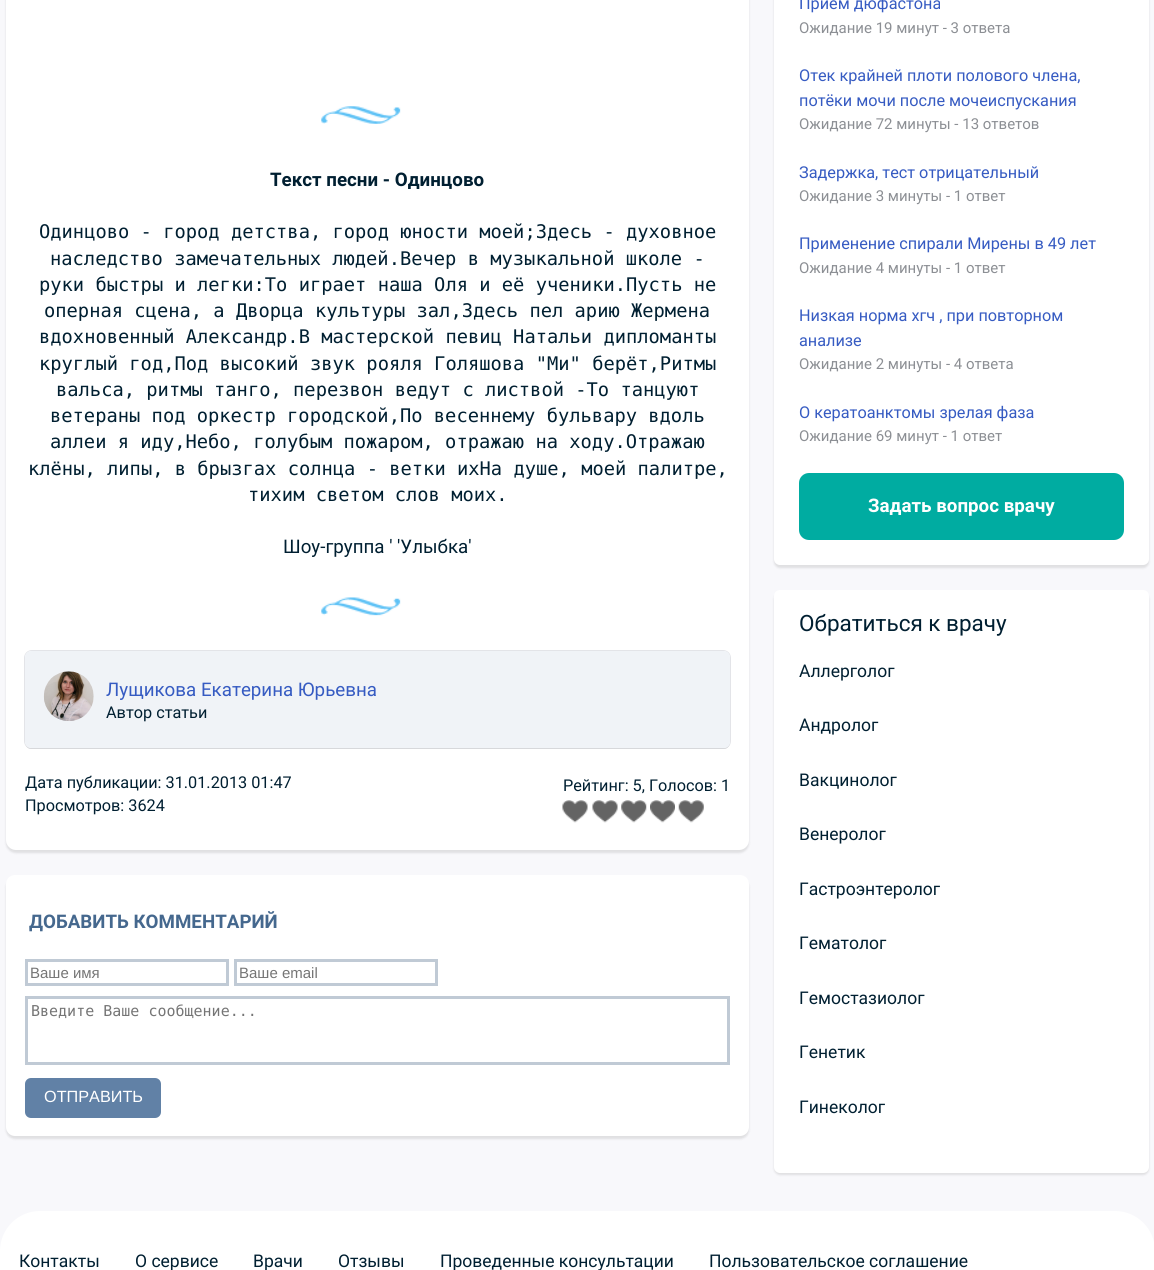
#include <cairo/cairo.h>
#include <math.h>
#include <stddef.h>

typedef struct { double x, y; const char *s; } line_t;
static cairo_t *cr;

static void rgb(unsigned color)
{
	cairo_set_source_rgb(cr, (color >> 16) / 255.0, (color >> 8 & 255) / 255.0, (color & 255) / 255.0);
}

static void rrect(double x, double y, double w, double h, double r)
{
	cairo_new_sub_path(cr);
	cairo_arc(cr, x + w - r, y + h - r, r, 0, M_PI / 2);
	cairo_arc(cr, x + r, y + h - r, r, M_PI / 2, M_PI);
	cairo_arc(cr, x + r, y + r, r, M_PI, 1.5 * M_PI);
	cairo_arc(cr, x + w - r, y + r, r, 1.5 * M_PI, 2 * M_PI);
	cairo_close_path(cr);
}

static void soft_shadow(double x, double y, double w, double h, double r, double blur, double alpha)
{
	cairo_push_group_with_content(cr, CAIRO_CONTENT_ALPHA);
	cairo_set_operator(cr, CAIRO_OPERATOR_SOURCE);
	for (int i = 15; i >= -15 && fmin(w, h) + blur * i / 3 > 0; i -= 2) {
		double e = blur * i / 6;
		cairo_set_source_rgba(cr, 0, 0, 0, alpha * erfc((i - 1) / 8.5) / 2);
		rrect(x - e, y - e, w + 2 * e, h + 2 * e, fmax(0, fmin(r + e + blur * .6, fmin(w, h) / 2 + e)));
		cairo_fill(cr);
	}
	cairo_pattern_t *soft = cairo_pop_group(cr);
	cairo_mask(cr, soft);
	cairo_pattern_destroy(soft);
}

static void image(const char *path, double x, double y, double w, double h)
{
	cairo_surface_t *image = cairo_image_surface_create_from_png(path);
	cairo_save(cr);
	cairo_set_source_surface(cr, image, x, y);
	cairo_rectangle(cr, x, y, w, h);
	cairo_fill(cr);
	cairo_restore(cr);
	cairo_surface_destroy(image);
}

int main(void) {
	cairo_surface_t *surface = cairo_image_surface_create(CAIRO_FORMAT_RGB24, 1154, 1270);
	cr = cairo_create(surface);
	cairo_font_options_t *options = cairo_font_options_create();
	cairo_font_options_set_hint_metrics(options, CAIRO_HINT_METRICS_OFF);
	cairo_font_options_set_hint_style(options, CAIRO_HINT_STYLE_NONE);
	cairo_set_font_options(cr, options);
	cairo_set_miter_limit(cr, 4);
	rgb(0xf8f8fb);
	cairo_paint(cr);
	rgb(0x000000);
	soft_shadow(6, -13, 743, 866, 10, 1, 0.1);
	rgb(0xffffff);
	rrect(6, -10, 743, 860, 10);
	cairo_fill(cr);
	image("img/1.png", 321, 106, 80, 18);
	image("img/2.png", 321, 597, 80, 19);
	rrect(24.5, 650.5, 706, 98, 7.5);
	rgb(0xe3e4e8);
	cairo_set_line_width(cr, 1);
	cairo_stroke(cr);
	rgb(0xd7d8db);
	cairo_new_path(cr);
	cairo_move_to(cr, 25, 742);
	cairo_curve_to(cr, 25, 745, 27, 749, 31, 749);
	cairo_line_to(cr, 724, 749);
	cairo_curve_to(cr, 728, 749, 730, 745, 730, 742);
	cairo_curve_to(cr, 730, 745, 727, 748, 724, 748);
	cairo_line_to(cr, 31, 748);
	cairo_curve_to(cr, 28, 748, 25, 745, 25, 742);
	cairo_close_path(cr);
	cairo_fill(cr);
	rgb(0xf0f3f7);
	rrect(25, 651, 705, 97, 6);
	cairo_fill(cr);
	image("img/3.png", 43, 671, 51, 50);
	image("img/4.png", 562, 800, 26, 23);
	image("img/5.png", 592, 800, 26, 23);
	image("img/6.png", 621, 800, 26, 23);
	image("img/7.png", 650, 800, 25, 23);
	image("img/8.png", 678, 800, 26, 23);
	rgb(0x000000);
	soft_shadow(6, 878, 743, 261, 9, 1, 0.1);
	rgb(0xffffff);
	rrect(6, 875, 743, 261, 9);
	cairo_fill(cr);
	cairo_rectangle(cr, 26.5, 960.5, 201, 24);
	rgb(0xc0cad5);
	cairo_set_line_width(cr, 3);
	cairo_stroke(cr);
	cairo_rectangle(cr, 235.5, 960.5, 201, 24);
	cairo_stroke(cr);
	cairo_rectangle(cr, 26.5, 997.5, 702, 66);
	cairo_stroke(cr);
	rgb(0x6181a6);
	rrect(25, 1078, 136, 40, 6);
	cairo_fill(cr);
	rgb(0x000000);
	soft_shadow(774, -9, 375, 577, 6, 1, 0.1);
	rgb(0xffffff);
	rrect(774, -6, 375, 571, 6);
	cairo_fill(cr);
	rgb(0x00aca1);
	rrect(799, 473, 325, 67, 10);
	cairo_fill(cr);
	rgb(0x000000);
	soft_shadow(774, 593, 375, 582, 6, 1, 0.1);
	rgb(0xffffff);
	rrect(774, 590, 375, 583, 6);
	cairo_fill(cr);
	rrect(0, 1211, 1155, 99, 40);
	cairo_fill(cr);
	cairo_select_font_face(cr, "Roboto", CAIRO_FONT_SLANT_NORMAL, CAIRO_FONT_WEIGHT_BOLD);
	cairo_set_font_size(cr, 18.75);
	rgb(0x001f31);
	cairo_move_to(cr, 270, 186);
	cairo_show_text(cr, "Текст песни - Одинцово");
	cairo_select_font_face(cr, "DejaVu Sans Mono", CAIRO_FONT_SLANT_NORMAL, CAIRO_FONT_WEIGHT_NORMAL);
	{
		static const line_t items[] = {
			{39, 238, "Одинцово - город детства, город юности моей;Здесь - духовное"},
			{50, 265, "наследство замечательных людей.Вечер в музыкальной школе -"},
			{39, 291, "руки быстры и легки:То играет наша Оля и её ученики.Пусть не"},
			{44, 317, "оперная сцена, а Дворца культуры зал,Здесь пел арию Жермена"},
			{39, 343, "вдохновенный Александр.В мастерской певиц Натальи дипломанты"},
			{39, 370, "круглый год,Под высокий звук рояля Голяшова \"Ми\" берёт,Ритмы"},
			{56, 396, "вальса, ритмы танго, перезвон ведут с листвой -То танцуют"},
			{50, 422, "ветераны под оркестр городской,По весеннему бульвару вдоль"},
			{50, 448, "аллеи я иду,Небо, голубым пожаром, отражаю на ходу.Отражаю"},
			{28, 475, "клёны, липы, в брызгах солнца - ветки ихНа душе, моей палитре,"},
			{248, 501, "тихим светом слов моих."},
		};
		for (size_t i = 0; i < sizeof items / sizeof *items; i++) {
			cairo_move_to(cr, items[i].x, items[i].y);
			cairo_show_text(cr, items[i].s);
		}
	}
	cairo_select_font_face(cr, "Roboto", CAIRO_FONT_SLANT_NORMAL, CAIRO_FONT_WEIGHT_NORMAL);
	cairo_move_to(cr, 283, 553);
	cairo_show_text(cr, "Шоу-группа ' 'Улыбка'");
	rgb(0x365bc2);
	cairo_move_to(cr, 106, 696);
	cairo_show_text(cr, "Лущикова Екатерина Юрьевна");
	cairo_set_font_size(cr, 16.25);
	rgb(0x001f31);
	{
		static const line_t items[] = {
			{106, 718, "Автор статьи"},
			{25, 788, "Дата публикации: 31.01.2013 01:47"},
			{25, 811, "Просмотров: 3624"},
			{563, 791, "Рейтинг: 5, Голосов: 1"},
		};
		for (size_t i = 0; i < sizeof items / sizeof *items; i++) {
			cairo_move_to(cr, items[i].x, items[i].y);
			cairo_show_text(cr, items[i].s);
		}
	}
	cairo_select_font_face(cr, "Roboto", CAIRO_FONT_SLANT_NORMAL, CAIRO_FONT_WEIGHT_BOLD);
	cairo_set_font_size(cr, 18.75);
	rgb(0x45688e);
	cairo_move_to(cr, 29, 928);
	cairo_show_text(cr, "ДОБАВИТЬ КОММЕНТАРИЙ");
	cairo_select_font_face(cr, "Liberation Sans", CAIRO_FONT_SLANT_NORMAL, CAIRO_FONT_WEIGHT_NORMAL);
	cairo_set_font_size(cr, 15);
	rgb(0x757575);
	cairo_move_to(cr, 30, 978);
	cairo_show_text(cr, "Ваше имя");
	cairo_move_to(cr, 239, 978);
	cairo_show_text(cr, "Ваше email");
	cairo_select_font_face(cr, "DejaVu Sans Mono", CAIRO_FONT_SLANT_NORMAL, CAIRO_FONT_WEIGHT_NORMAL);
	cairo_move_to(cr, 31, 1016);
	cairo_show_text(cr, "Введите Ваше сообщение...");
	cairo_select_font_face(cr, "Liberation Sans", CAIRO_FONT_SLANT_NORMAL, CAIRO_FONT_WEIGHT_NORMAL);
	cairo_set_font_size(cr, 16.25);
	rgb(0xffffff);
	cairo_move_to(cr, 44, 1102);
	cairo_show_text(cr, "ОТПРАВИТЬ");
	cairo_select_font_face(cr, "Roboto", CAIRO_FONT_SLANT_NORMAL, CAIRO_FONT_WEIGHT_NORMAL);
	rgb(0x365bc2);
	cairo_move_to(cr, 799, 9);
	cairo_show_text(cr, "Прием дюфастона");
	cairo_set_font_size(cr, 15);
	rgb(0x8c8f94);
	cairo_move_to(cr, 799, 33);
	cairo_show_text(cr, "Ожидание 19 минут - 3 ответа");
	cairo_set_font_size(cr, 16.25);
	rgb(0x365bc2);
	cairo_move_to(cr, 799, 81);
	cairo_show_text(cr, "Отек крайней плоти полового члена,");
	cairo_move_to(cr, 799, 106);
	cairo_show_text(cr, "потёки мочи после мочеиспускания");
	cairo_set_font_size(cr, 15);
	rgb(0x8c8f94);
	cairo_move_to(cr, 799, 129);
	cairo_show_text(cr, "Ожидание 72 минуты - 13 ответов");
	cairo_set_font_size(cr, 16.25);
	rgb(0x365bc2);
	cairo_move_to(cr, 799, 178);
	cairo_show_text(cr, "Задержка, тест отрицательный");
	cairo_set_font_size(cr, 15);
	rgb(0x8c8f94);
	cairo_move_to(cr, 799, 201);
	cairo_show_text(cr, "Ожидание 3 минуты - 1 ответ");
	cairo_set_font_size(cr, 16.25);
	rgb(0x365bc2);
	cairo_move_to(cr, 799, 249);
	cairo_show_text(cr, "Применение спирали Мирены в 49 лет");
	cairo_set_font_size(cr, 15);
	rgb(0x8c8f94);
	cairo_move_to(cr, 799, 273);
	cairo_show_text(cr, "Ожидание 4 минуты - 1 ответ");
	cairo_set_font_size(cr, 16.25);
	rgb(0x365bc2);
	cairo_move_to(cr, 799, 321);
	cairo_show_text(cr, "Низкая норма хгч , при повторном");
	cairo_move_to(cr, 799, 346);
	cairo_show_text(cr, "анализе");
	cairo_set_font_size(cr, 15);
	rgb(0x8c8f94);
	cairo_move_to(cr, 799, 369);
	cairo_show_text(cr, "Ожидание 2 минуты - 4 ответа");
	cairo_set_font_size(cr, 16.25);
	rgb(0x365bc2);
	cairo_move_to(cr, 799, 418);
	cairo_show_text(cr, "О кератоанктомы зрелая фаза");
	cairo_set_font_size(cr, 15);
	rgb(0x8c8f94);
	cairo_move_to(cr, 799, 441);
	cairo_show_text(cr, "Ожидание 69 минут - 1 ответ");
	cairo_select_font_face(cr, "Roboto", CAIRO_FONT_SLANT_NORMAL, CAIRO_FONT_WEIGHT_BOLD);
	cairo_set_font_size(cr, 18.75);
	rgb(0xffffff);
	cairo_move_to(cr, 868, 512);
	cairo_show_text(cr, "Задать вопрос врачу");
	cairo_select_font_face(cr, "Roboto", CAIRO_FONT_SLANT_NORMAL, CAIRO_FONT_WEIGHT_NORMAL);
	cairo_set_font_size(cr, 22.5);
	rgb(0x001f31);
	cairo_move_to(cr, 799, 631);
	cairo_show_text(cr, "Обратиться к врачу");
	cairo_set_font_size(cr, 17.5);
	{
		static const line_t items[] = {
			{799, 677, "Аллерголог"},
			{799, 731, "Андролог"},
			{799, 786, "Вакцинолог"},
			{799, 840, "Венеролог"},
			{799, 895, "Гастроэнтеролог"},
			{799, 949, "Гематолог"},
			{799, 1004, "Гемостазиолог"},
			{799, 1058, "Генетик"},
			{799, 1113, "Гинеколог"},
			{19, 1267, "Контакты"},
			{135, 1267, "О сервисе"},
			{253, 1267, "Врачи"},
			{338, 1267, "Отзывы"},
			{440, 1267, "Проведенные консультации"},
			{709, 1267, "Пользовательское соглашение"},
		};
		for (size_t i = 0; i < sizeof items / sizeof *items; i++) {
			cairo_move_to(cr, items[i].x, items[i].y);
			cairo_show_text(cr, items[i].s);
		}
	}
	cairo_surface_write_to_png(surface, "page.png");
	cairo_font_options_destroy(options);
	cairo_destroy(cr);
	cairo_surface_destroy(surface);
	return 0;
}
